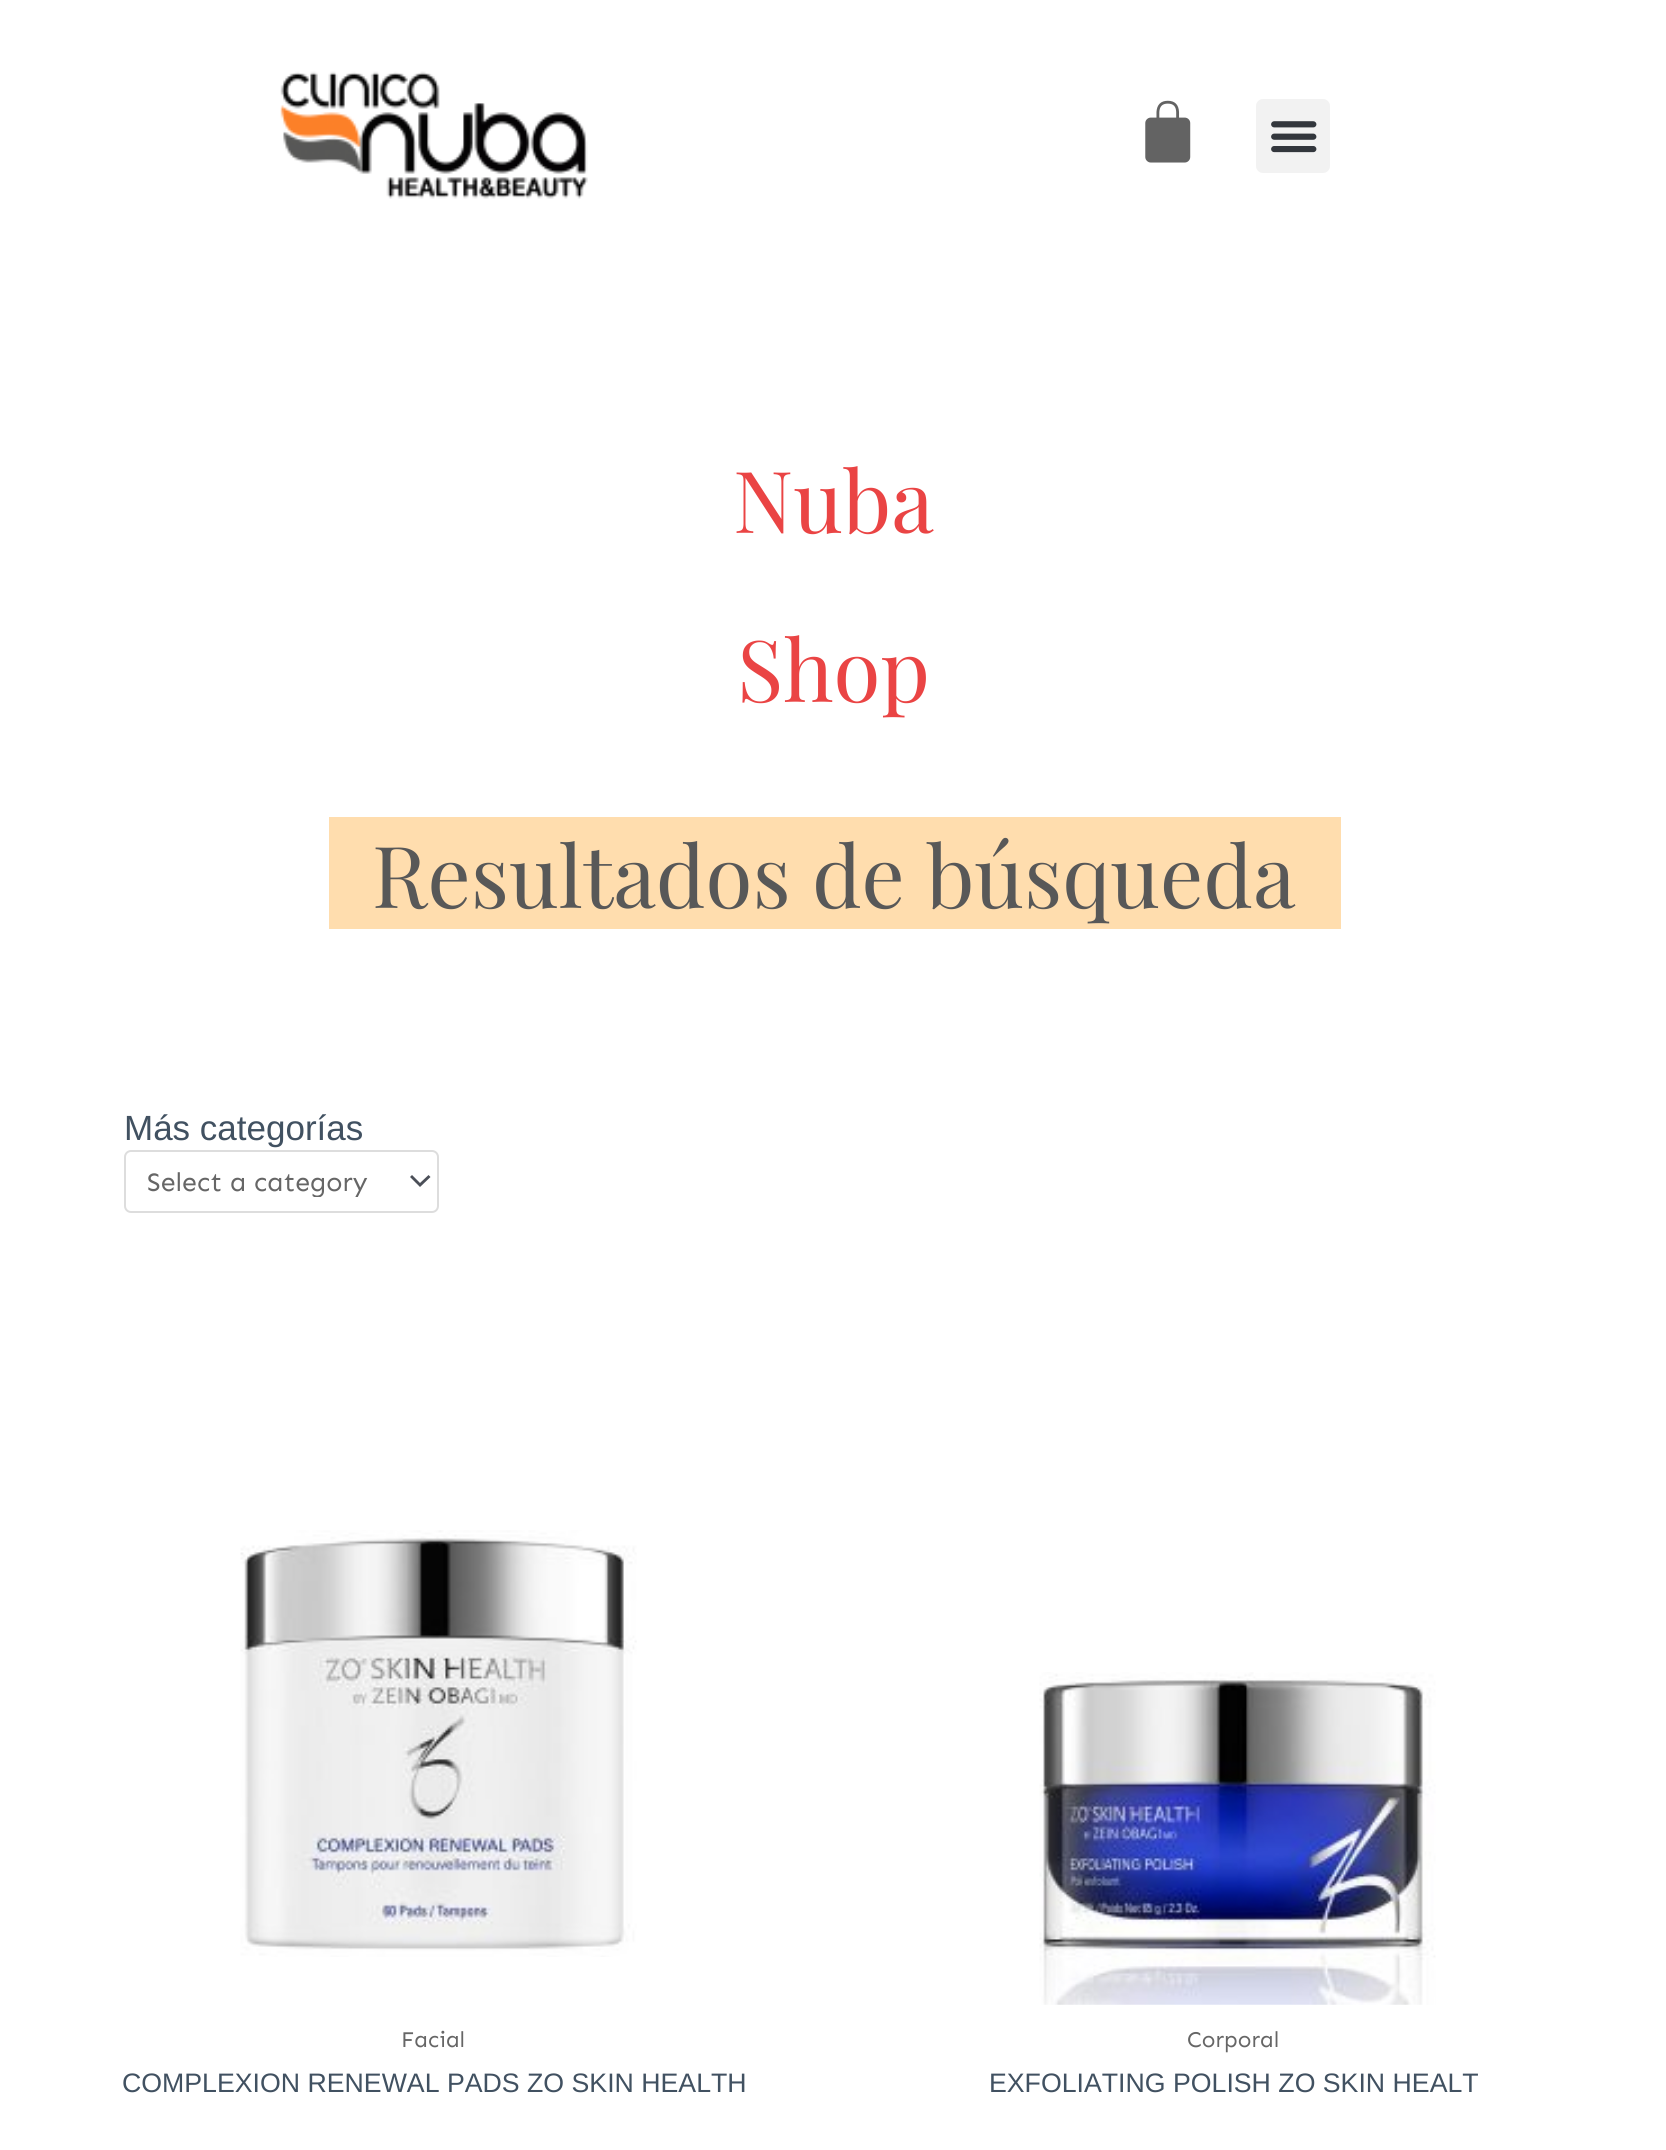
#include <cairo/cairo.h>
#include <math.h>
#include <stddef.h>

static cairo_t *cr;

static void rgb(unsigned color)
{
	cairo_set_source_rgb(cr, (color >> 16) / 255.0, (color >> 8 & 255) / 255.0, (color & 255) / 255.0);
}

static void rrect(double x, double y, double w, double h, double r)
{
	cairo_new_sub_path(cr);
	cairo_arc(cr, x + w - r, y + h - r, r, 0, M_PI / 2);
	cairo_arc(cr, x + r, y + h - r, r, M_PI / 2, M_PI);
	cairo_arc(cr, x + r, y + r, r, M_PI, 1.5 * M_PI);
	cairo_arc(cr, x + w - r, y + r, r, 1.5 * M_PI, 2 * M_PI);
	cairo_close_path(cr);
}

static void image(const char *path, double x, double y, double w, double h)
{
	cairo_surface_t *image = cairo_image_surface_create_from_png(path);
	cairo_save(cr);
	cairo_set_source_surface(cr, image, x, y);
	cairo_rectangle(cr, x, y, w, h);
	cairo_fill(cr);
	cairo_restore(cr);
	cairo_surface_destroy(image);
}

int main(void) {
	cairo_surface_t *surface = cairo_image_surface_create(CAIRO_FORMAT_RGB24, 1666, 2150);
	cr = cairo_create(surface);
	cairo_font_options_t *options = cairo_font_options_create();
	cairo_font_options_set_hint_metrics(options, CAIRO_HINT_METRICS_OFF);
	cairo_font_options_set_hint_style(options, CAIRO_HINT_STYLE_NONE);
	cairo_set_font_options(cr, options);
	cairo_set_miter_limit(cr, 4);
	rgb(0xffffff);
	cairo_paint(cr);
	image("img/1.png", 280, 71, 308, 128);
	image("img/2.png", 1145, 100, 46, 63);
	rgb(0xf2f2f2);
	rrect(1256, 99, 74, 74, 7);
	cairo_fill(cr);
	image("img/3.png", 1271, 121, 46, 32);
	rgb(0xffddae);
	cairo_rectangle(cr, 329, 817, 1012, 112);
	cairo_fill(cr);
	rgb(0x4b4f58);
	cairo_new_path(cr);
	cairo_move_to(cr, 410, 1177);
	cairo_line_to(cr, 420, 1187);
	cairo_line_to(cr, 430.5, 1177);
	cairo_line_to(cr, 428.5, 1175);
	cairo_line_to(cr, 420, 1183);
	cairo_line_to(cr, 412, 1175);
	cairo_close_path(cr);
	cairo_fill(cr);
	rrect(125, 1151, 313, 61, 6);
	rgb(0xdddddd);
	cairo_stroke(cr);
	image("img/4.png", 240, 1530, 397, 427);
	image("img/5.png", 1039, 1672, 397, 333);
	cairo_select_font_face(cr, "Playfair Display", CAIRO_FONT_SLANT_NORMAL, CAIRO_FONT_WEIGHT_NORMAL);
	cairo_set_font_size(cr, 85.5);
	rgb(0xea4444);
	cairo_move_to(cr, 733, 533);
	cairo_show_text(cr, "Nuba");
	cairo_move_to(cr, 737, 702);
	cairo_show_text(cr, "Shop");
	rgb(0x585858);
	cairo_move_to(cr, 372, 908);
	cairo_show_text(cr, "Resultados de búsqueda");
	cairo_select_font_face(cr, "Liberation Sans", CAIRO_FONT_SLANT_NORMAL, CAIRO_FONT_WEIGHT_NORMAL);
	cairo_set_font_size(cr, 35);
	rgb(0x415161);
	cairo_move_to(cr, 124, 1140);
	cairo_show_text(cr, "Más categorías");
	cairo_save(cr);
	cairo_rectangle(cr, 146, 1166, 237, 31);
	cairo_clip(cr);
	cairo_select_font_face(cr, "Sen", CAIRO_FONT_SLANT_NORMAL, CAIRO_FONT_WEIGHT_NORMAL);
	cairo_set_font_size(cr, 26.7);
	rgb(0x666666);
	cairo_move_to(cr, 147, 1191);
	cairo_show_text(cr, "Select a category");
	cairo_restore(cr);
	cairo_select_font_face(cr, "Sen", CAIRO_FONT_SLANT_NORMAL, CAIRO_FONT_WEIGHT_NORMAL);
	cairo_set_font_size(cr, 22.5);
	rgb(0x666666);
	cairo_move_to(cr, 401, 2047);
	cairo_show_text(cr, "Facial");
	cairo_select_font_face(cr, "Liberation Sans", CAIRO_FONT_SLANT_NORMAL, CAIRO_FONT_WEIGHT_NORMAL);
	cairo_set_font_size(cr, 26.7);
	rgb(0x415161);
	cairo_move_to(cr, 122, 2092);
	cairo_show_text(cr, "COMPLEXION RENEWAL PADS ZO SKIN HEALTH");
	cairo_select_font_face(cr, "Sen", CAIRO_FONT_SLANT_NORMAL, CAIRO_FONT_WEIGHT_NORMAL);
	cairo_set_font_size(cr, 22.5);
	rgb(0x666666);
	cairo_move_to(cr, 1187, 2047);
	cairo_show_text(cr, "Corporal");
	cairo_select_font_face(cr, "Liberation Sans", CAIRO_FONT_SLANT_NORMAL, CAIRO_FONT_WEIGHT_NORMAL);
	cairo_set_font_size(cr, 26.7);
	rgb(0x415161);
	cairo_move_to(cr, 989, 2092);
	cairo_show_text(cr, "EXFOLIATING POLISH ZO SKIN HEALT");
	cairo_surface_write_to_png(surface, "page.png");
	cairo_font_options_destroy(options);
	cairo_destroy(cr);
	cairo_surface_destroy(surface);
	return 0;
}
